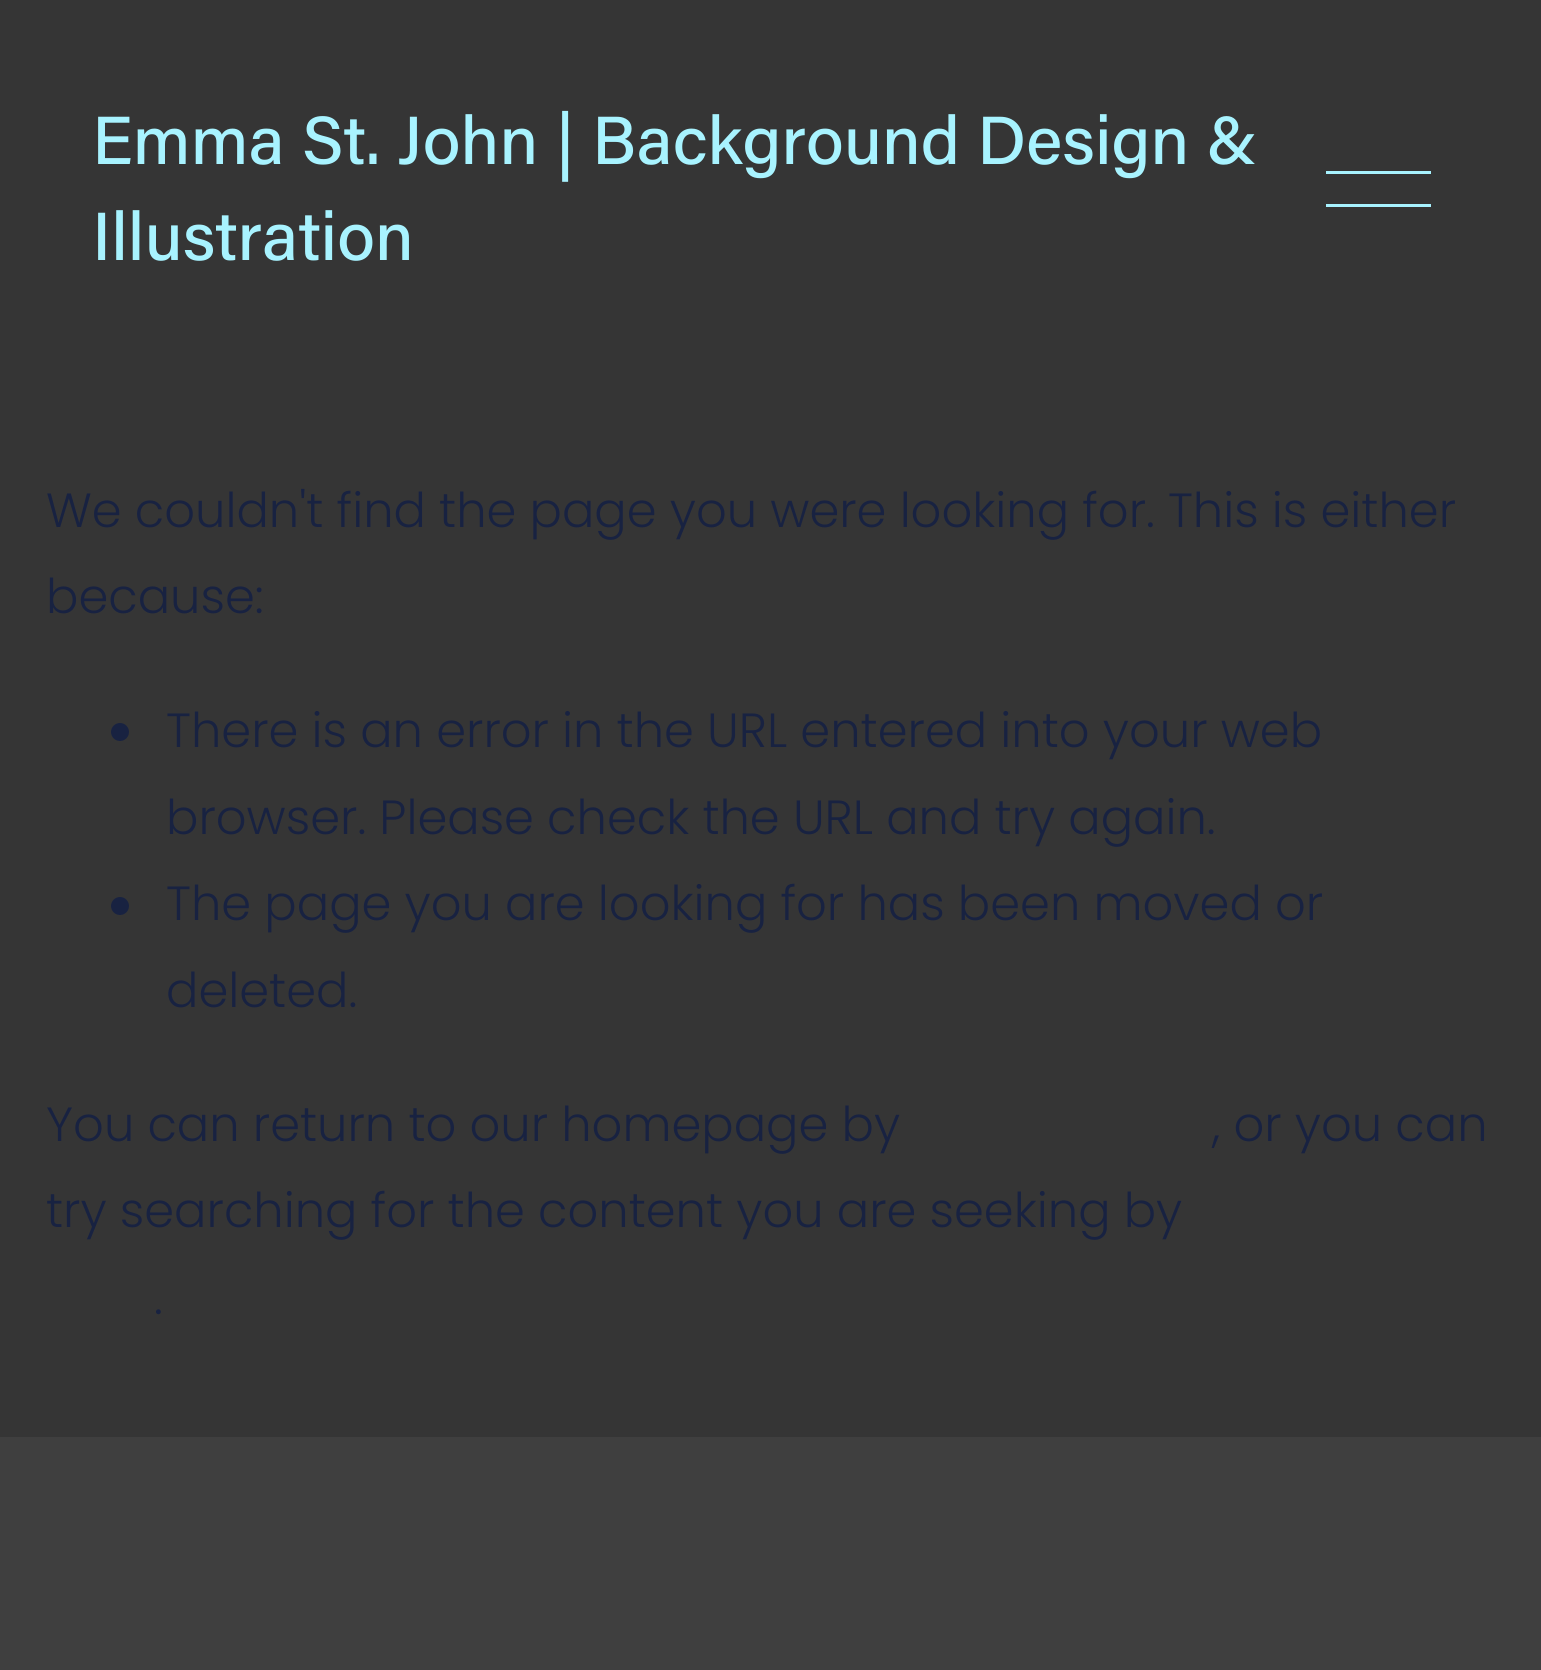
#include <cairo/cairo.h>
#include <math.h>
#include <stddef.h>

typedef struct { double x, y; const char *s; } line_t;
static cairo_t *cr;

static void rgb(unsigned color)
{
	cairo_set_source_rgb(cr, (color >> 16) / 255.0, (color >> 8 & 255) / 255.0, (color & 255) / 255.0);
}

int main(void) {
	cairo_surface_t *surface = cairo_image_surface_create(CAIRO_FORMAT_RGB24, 1541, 1670);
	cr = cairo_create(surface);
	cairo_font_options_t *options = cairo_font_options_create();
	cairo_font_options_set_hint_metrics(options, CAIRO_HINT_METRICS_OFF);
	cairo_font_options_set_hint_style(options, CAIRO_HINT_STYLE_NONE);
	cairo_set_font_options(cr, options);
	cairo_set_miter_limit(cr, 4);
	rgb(0x353535);
	cairo_paint(cr);
	rgb(0xa8f3ff);
	cairo_rectangle(cr, 1326, 171, 105, 3);
	cairo_fill(cr);
	cairo_rectangle(cr, 1326, 204, 105, 3);
	cairo_fill(cr);
	rgb(0x182241);
	cairo_arc(cr, 120, 732, 9, 0, 2 * M_PI);
	cairo_fill(cr);
	cairo_arc(cr, 120, 906, 9, 0, 2 * M_PI);
	cairo_fill(cr);
	rgb(0x3f3f3f);
	cairo_rectangle(cr, 0, 1437, 1541, 233);
	cairo_fill(cr);
	cairo_select_font_face(cr, "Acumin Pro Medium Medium", CAIRO_FONT_SLANT_NORMAL, CAIRO_FONT_WEIGHT_NORMAL);
	cairo_set_font_size(cr, 68);
	rgb(0xa8f3ff);
	cairo_move_to(cr, 92, 164);
	cairo_show_text(cr, "Emma St. John | Background Design &");
	cairo_move_to(cr, 92, 260);
	cairo_show_text(cr, "Illustration");
	cairo_select_font_face(cr, "Poppins Light", CAIRO_FONT_SLANT_NORMAL, CAIRO_FONT_WEIGHT_NORMAL);
	cairo_set_font_size(cr, 48);
	rgb(0x182241);
	{
		static const line_t items[] = {
			{46, 527, "We couldn't find the page you were looking for. This is either"},
			{46, 613, "because:"},
			{166, 747, "There is an error in the URL entered into your web"},
			{166, 834, "browser. Please check the URL and try again."},
			{166, 920, "The page you are looking for has been moved or"},
			{166, 1007, "deleted."},
			{46, 1141, "You can return to our homepage by"},
			{1212, 1141, ", or you can"},
			{46, 1227, "try searching for the content you are seeking by"},
			{154, 1314, "."},
		};
		for (size_t i = 0; i < sizeof items / sizeof *items; i++) {
			cairo_move_to(cr, items[i].x, items[i].y);
			cairo_show_text(cr, items[i].s);
		}
	}
	cairo_surface_write_to_png(surface, "page.png");
	cairo_font_options_destroy(options);
	cairo_destroy(cr);
	cairo_surface_destroy(surface);
	return 0;
}
